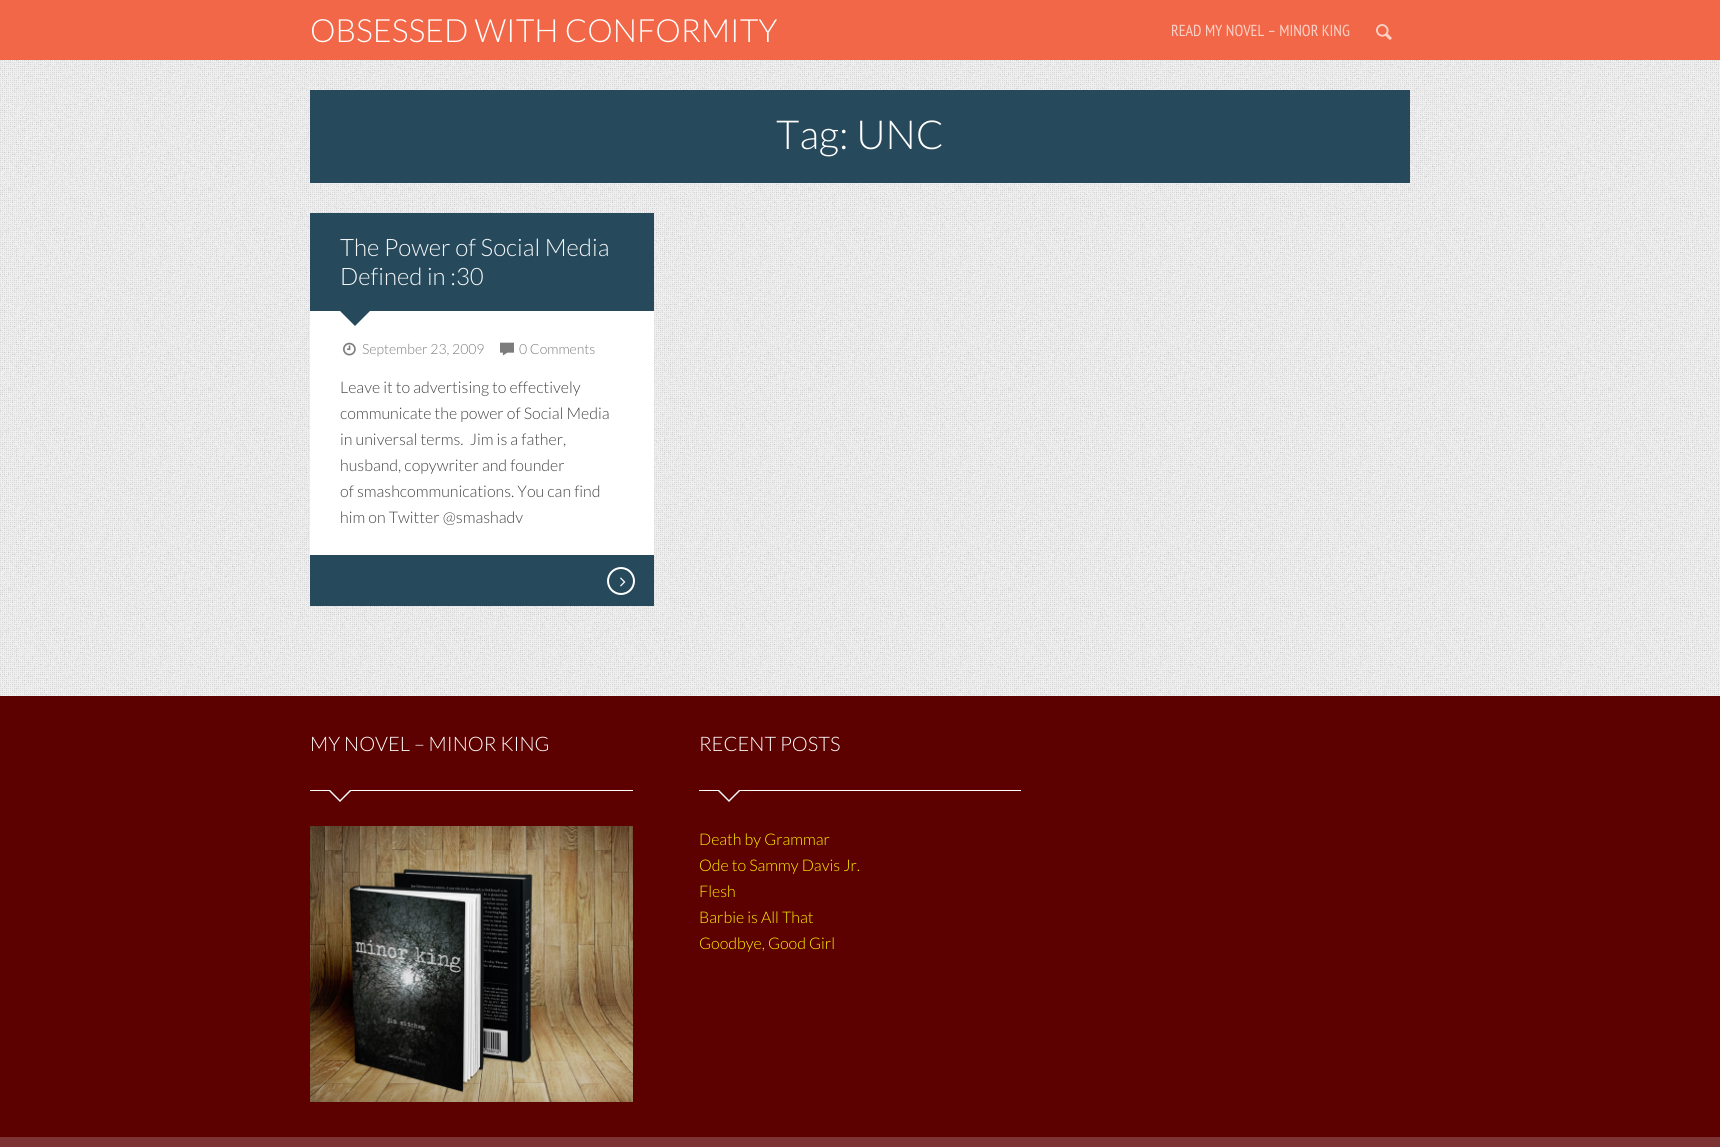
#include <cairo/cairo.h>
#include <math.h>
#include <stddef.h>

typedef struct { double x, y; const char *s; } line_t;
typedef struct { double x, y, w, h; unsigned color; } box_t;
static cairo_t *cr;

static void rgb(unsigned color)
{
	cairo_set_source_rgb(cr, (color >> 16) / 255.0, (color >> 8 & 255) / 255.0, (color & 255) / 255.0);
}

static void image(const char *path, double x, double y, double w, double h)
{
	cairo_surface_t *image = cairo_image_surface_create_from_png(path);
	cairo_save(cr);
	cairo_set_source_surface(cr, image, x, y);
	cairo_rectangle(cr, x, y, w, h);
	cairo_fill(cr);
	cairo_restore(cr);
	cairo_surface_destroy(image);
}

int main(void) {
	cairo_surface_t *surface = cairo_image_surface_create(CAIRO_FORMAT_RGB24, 1720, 1147);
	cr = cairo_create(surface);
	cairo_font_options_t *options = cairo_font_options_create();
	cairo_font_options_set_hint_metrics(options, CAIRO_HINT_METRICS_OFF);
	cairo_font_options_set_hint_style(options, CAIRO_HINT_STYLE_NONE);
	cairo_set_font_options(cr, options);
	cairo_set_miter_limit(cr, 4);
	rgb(0xffffff);
	cairo_paint(cr);
	image("img/1.png", 0, 60, 1720, 636);
	rgb(0xf16747);
	cairo_rectangle(cr, 0, 0, 1720, 60);
	cairo_fill(cr);
	image("img/2.png", 1376, 24, 16, 16);
	{
		static const box_t items[] = {
			{310, 90, 1100, 93, 0x26495b},
			{310, 311, 344, 244, 0xffffff},
			{310, 213, 344, 98, 0x26495b},
		};
		for (size_t i = 0; i < sizeof items / sizeof *items; i++) {
			rgb(items[i].color);
			cairo_rectangle(cr, items[i].x, items[i].y, items[i].w, items[i].h);
			cairo_fill(cr);
		}
	}
	cairo_new_path(cr);
	cairo_move_to(cr, 340, 311);
	cairo_line_to(cr, 370, 311);
	cairo_line_to(cr, 355, 326);
	cairo_close_path(cr);
	cairo_fill(cr);
	image("img/3.png", 343, 342, 13, 14);
	image("img/4.png", 500, 342, 14, 14);
	cairo_rectangle(cr, 310, 555, 344, 51);
	cairo_fill(cr);
	cairo_arc(cr, 621, 581, 13, 0, 2 * M_PI);
	rgb(0xffffff);
	cairo_stroke(cr);
	image("img/5.png", 620, 577, 6, 10);
	rgb(0x5c0000);
	cairo_rectangle(cr, 0, 696, 1720, 441);
	cairo_fill(cr);
	rgb(0xffffff);
	cairo_rectangle(cr, 310, 790, 323, 1);
	cairo_fill(cr);
	cairo_new_path(cr);
	cairo_move_to(cr, 328, 790);
	cairo_line_to(cr, 352, 790);
	cairo_line_to(cr, 340, 802);
	cairo_close_path(cr);
	cairo_fill(cr);
	rgb(0x5c0000);
	cairo_new_path(cr);
	cairo_move_to(cr, 330, 790);
	cairo_line_to(cr, 350, 790);
	cairo_line_to(cr, 340, 800);
	cairo_close_path(cr);
	cairo_fill(cr);
	image("img/6.png", 310, 826, 323, 276);
	rgb(0xffffff);
	cairo_rectangle(cr, 699, 790, 322, 1);
	cairo_fill(cr);
	cairo_new_path(cr);
	cairo_move_to(cr, 717, 790);
	cairo_line_to(cr, 741, 790);
	cairo_line_to(cr, 729, 802);
	cairo_close_path(cr);
	cairo_fill(cr);
	rgb(0x5c0000);
	cairo_new_path(cr);
	cairo_move_to(cr, 719, 790);
	cairo_line_to(cr, 739, 790);
	cairo_line_to(cr, 729, 800);
	cairo_close_path(cr);
	cairo_fill(cr);
	rgb(0x7d3333);
	cairo_rectangle(cr, 0, 1137, 1720, 10);
	cairo_fill(cr);
	cairo_select_font_face(cr, "Lato Light", CAIRO_FONT_SLANT_NORMAL, CAIRO_FONT_WEIGHT_NORMAL);
	cairo_set_font_size(cr, 32);
	rgb(0xffffff);
	cairo_move_to(cr, 310, 42);
	cairo_show_text(cr, "OBSESSED WITH CONFORMITY");
	cairo_select_font_face(cr, "PT Sans Narrow", CAIRO_FONT_SLANT_NORMAL, CAIRO_FONT_WEIGHT_NORMAL);
	cairo_set_font_size(cr, 16);
	rgb(0xfbd1c8);
	cairo_move_to(cr, 1171, 36);
	cairo_show_text(cr, "READ MY NOVEL – MINOR KING");
	cairo_select_font_face(cr, "Lato Light", CAIRO_FONT_SLANT_NORMAL, CAIRO_FONT_WEIGHT_NORMAL);
	cairo_set_font_size(cr, 40);
	rgb(0xffffff);
	cairo_move_to(cr, 776, 149);
	cairo_show_text(cr, "Tag: UNC");
	cairo_set_font_size(cr, 24);
	rgb(0xf4f6f7);
	cairo_move_to(cr, 340, 256);
	cairo_show_text(cr, "The Power of Social Media");
	cairo_move_to(cr, 340, 285);
	cairo_show_text(cr, "Defined in :30");
	cairo_set_font_size(cr, 14);
	rgb(0x7c7c7c);
	cairo_move_to(cr, 362, 354);
	cairo_show_text(cr, "September 23, 2009");
	cairo_move_to(cr, 519, 354);
	cairo_show_text(cr, "0 Comments");
	cairo_set_font_size(cr, 16);
	rgb(0x444444);
	{
		static const line_t items[] = {
			{340, 393, "Leave it to advertising to effectively"},
			{340, 419, "communicate the power of Social Media"},
			{340, 445, "in universal terms.  Jim is a father,"},
			{340, 471, "husband, copywriter and founder"},
			{340, 497, "of smashcommunications. You can find"},
			{340, 523, "him on Twitter @smashadv"},
		};
		for (size_t i = 0; i < sizeof items / sizeof *items; i++) {
			cairo_move_to(cr, items[i].x, items[i].y);
			cairo_show_text(cr, items[i].s);
		}
	}
	cairo_set_font_size(cr, 20);
	rgb(0xffffff);
	cairo_move_to(cr, 310, 751);
	cairo_show_text(cr, "MY NOVEL – MINOR KING");
	cairo_move_to(cr, 699, 751);
	cairo_show_text(cr, "RECENT POSTS");
	cairo_set_font_size(cr, 16);
	rgb(0xfff200);
	{
		static const line_t items[] = {
			{699, 845, "Death by Grammar"},
			{699, 871, "Ode to Sammy Davis Jr."},
			{699, 897, "Flesh"},
			{699, 923, "Barbie is All That"},
			{699, 949, "Goodbye, Good Girl"},
		};
		for (size_t i = 0; i < sizeof items / sizeof *items; i++) {
			cairo_move_to(cr, items[i].x, items[i].y);
			cairo_show_text(cr, items[i].s);
		}
	}
	cairo_surface_write_to_png(surface, "page.png");
	cairo_font_options_destroy(options);
	cairo_destroy(cr);
	cairo_surface_destroy(surface);
	return 0;
}
